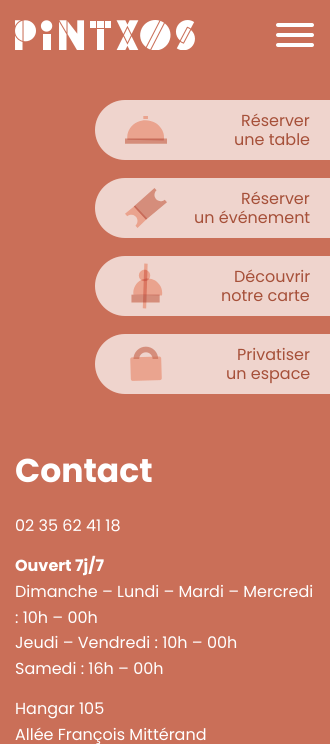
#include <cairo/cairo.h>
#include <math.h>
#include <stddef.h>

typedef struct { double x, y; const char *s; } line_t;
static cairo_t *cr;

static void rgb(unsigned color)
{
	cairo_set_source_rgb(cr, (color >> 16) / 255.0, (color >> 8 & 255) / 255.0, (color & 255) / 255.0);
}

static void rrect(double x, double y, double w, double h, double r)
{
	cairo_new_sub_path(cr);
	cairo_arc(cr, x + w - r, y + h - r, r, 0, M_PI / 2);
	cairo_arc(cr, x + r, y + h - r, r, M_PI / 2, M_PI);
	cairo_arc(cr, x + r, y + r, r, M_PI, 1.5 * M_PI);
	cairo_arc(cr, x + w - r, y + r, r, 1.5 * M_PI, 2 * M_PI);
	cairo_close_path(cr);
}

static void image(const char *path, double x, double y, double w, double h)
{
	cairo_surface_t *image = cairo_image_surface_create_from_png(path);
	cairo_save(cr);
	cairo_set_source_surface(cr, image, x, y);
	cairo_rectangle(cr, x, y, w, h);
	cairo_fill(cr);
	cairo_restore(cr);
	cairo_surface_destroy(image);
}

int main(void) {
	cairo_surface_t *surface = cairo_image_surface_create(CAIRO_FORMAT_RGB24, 330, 744);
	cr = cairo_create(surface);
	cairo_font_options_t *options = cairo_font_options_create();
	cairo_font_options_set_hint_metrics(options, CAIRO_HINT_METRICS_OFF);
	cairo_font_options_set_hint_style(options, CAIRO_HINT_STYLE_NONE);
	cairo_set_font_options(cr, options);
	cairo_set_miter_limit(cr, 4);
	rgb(0xca6f58);
	cairo_paint(cr);
	image("img/1.png", 15, 20, 180, 30);
	rgb(0xffffff);
	rrect(276, 33, 38, 4, 2);
	cairo_fill(cr);
	rrect(276, 23, 38, 4, 2);
	cairo_fill(cr);
	rrect(276, 43, 38, 4, 2);
	cairo_fill(cr);
	rgb(0xefd4cd);
	cairo_new_path(cr);
	cairo_move_to(cr, 125, 100);
	cairo_line_to(cr, 330, 100);
	cairo_line_to(cr, 330, 160);
	cairo_line_to(cr, 125, 160);
	cairo_curve_to(cr, 108.5, 160, 95, 146.5, 95, 130);
	cairo_curve_to(cr, 95, 113.5, 108.5, 100, 125, 100);
	cairo_close_path(cr);
	cairo_fill(cr);
	image("img/2.png", 125, 116, 42, 28);
	cairo_new_path(cr);
	cairo_move_to(cr, 125, 178);
	cairo_line_to(cr, 330, 178);
	cairo_line_to(cr, 330, 238);
	cairo_line_to(cr, 125, 238);
	cairo_curve_to(cr, 108.5, 238, 95, 224.5, 95, 208);
	cairo_curve_to(cr, 95, 191.5, 108.5, 178, 125, 178);
	cairo_close_path(cr);
	cairo_fill(cr);
	image("img/3.png", 125, 188, 42, 40);
	cairo_new_path(cr);
	cairo_move_to(cr, 125, 256);
	cairo_line_to(cr, 330, 256);
	cairo_line_to(cr, 330, 316);
	cairo_line_to(cr, 125, 316);
	cairo_curve_to(cr, 108.5, 316, 95, 302.5, 95, 286);
	cairo_curve_to(cr, 95, 269.5, 108.5, 256, 125, 256);
	cairo_close_path(cr);
	cairo_fill(cr);
	image("img/4.png", 131, 263, 32, 46);
	cairo_new_path(cr);
	cairo_move_to(cr, 125, 334);
	cairo_line_to(cr, 330, 334);
	cairo_line_to(cr, 330, 394);
	cairo_line_to(cr, 125, 394);
	cairo_curve_to(cr, 108.5, 394, 95, 380.5, 95, 364);
	cairo_curve_to(cr, 95, 347.5, 108.5, 334, 125, 334);
	cairo_close_path(cr);
	cairo_fill(cr);
	image("img/5.png", 130, 346, 32, 35);
	cairo_select_font_face(cr, "Poppins", CAIRO_FONT_SLANT_NORMAL, CAIRO_FONT_WEIGHT_NORMAL);
	cairo_set_font_size(cr, 16);
	rgb(0xa65039);
	{
		static const line_t items[] = {
			{241, 126, "Réserver"},
			{234, 145, "une table"},
			{241, 204, "Réserver"},
			{194, 223, "un événement"},
			{234, 282, "Découvrir"},
			{221, 301, "notre carte"},
			{237, 360, "Privatiser"},
			{226, 379, "un espace"},
		};
		for (size_t i = 0; i < sizeof items / sizeof *items; i++) {
			cairo_move_to(cr, items[i].x, items[i].y);
			cairo_show_text(cr, items[i].s);
		}
	}
	cairo_select_font_face(cr, "Poppins", CAIRO_FONT_SLANT_NORMAL, CAIRO_FONT_WEIGHT_BOLD);
	cairo_set_font_size(cr, 33);
	rgb(0xffffff);
	cairo_move_to(cr, 15, 482);
	cairo_show_text(cr, "Contact");
	cairo_select_font_face(cr, "Poppins", CAIRO_FONT_SLANT_NORMAL, CAIRO_FONT_WEIGHT_NORMAL);
	cairo_set_font_size(cr, 16);
	cairo_move_to(cr, 15, 531);
	cairo_show_text(cr, "02 35 62 41 18");
	cairo_select_font_face(cr, "Poppins", CAIRO_FONT_SLANT_NORMAL, CAIRO_FONT_WEIGHT_BOLD);
	cairo_move_to(cr, 15, 571);
	cairo_show_text(cr, "Ouvert 7j/7");
	cairo_select_font_face(cr, "Poppins", CAIRO_FONT_SLANT_NORMAL, CAIRO_FONT_WEIGHT_NORMAL);
	{
		static const line_t items[] = {
			{15, 597, "Dimanche – Lundi – Mardi – Mercredi"},
			{15, 623, ": 10h – 00h"},
			{15, 648, "Jeudi – Vendredi : 10h – 00h"},
			{15, 674, "Samedi : 16h – 00h"},
			{15, 714, "Hangar 105"},
			{15, 740, "Allée François Mittérand"},
		};
		for (size_t i = 0; i < sizeof items / sizeof *items; i++) {
			cairo_move_to(cr, items[i].x, items[i].y);
			cairo_show_text(cr, items[i].s);
		}
	}
	cairo_surface_write_to_png(surface, "page.png");
	cairo_font_options_destroy(options);
	cairo_destroy(cr);
	cairo_surface_destroy(surface);
	return 0;
}
